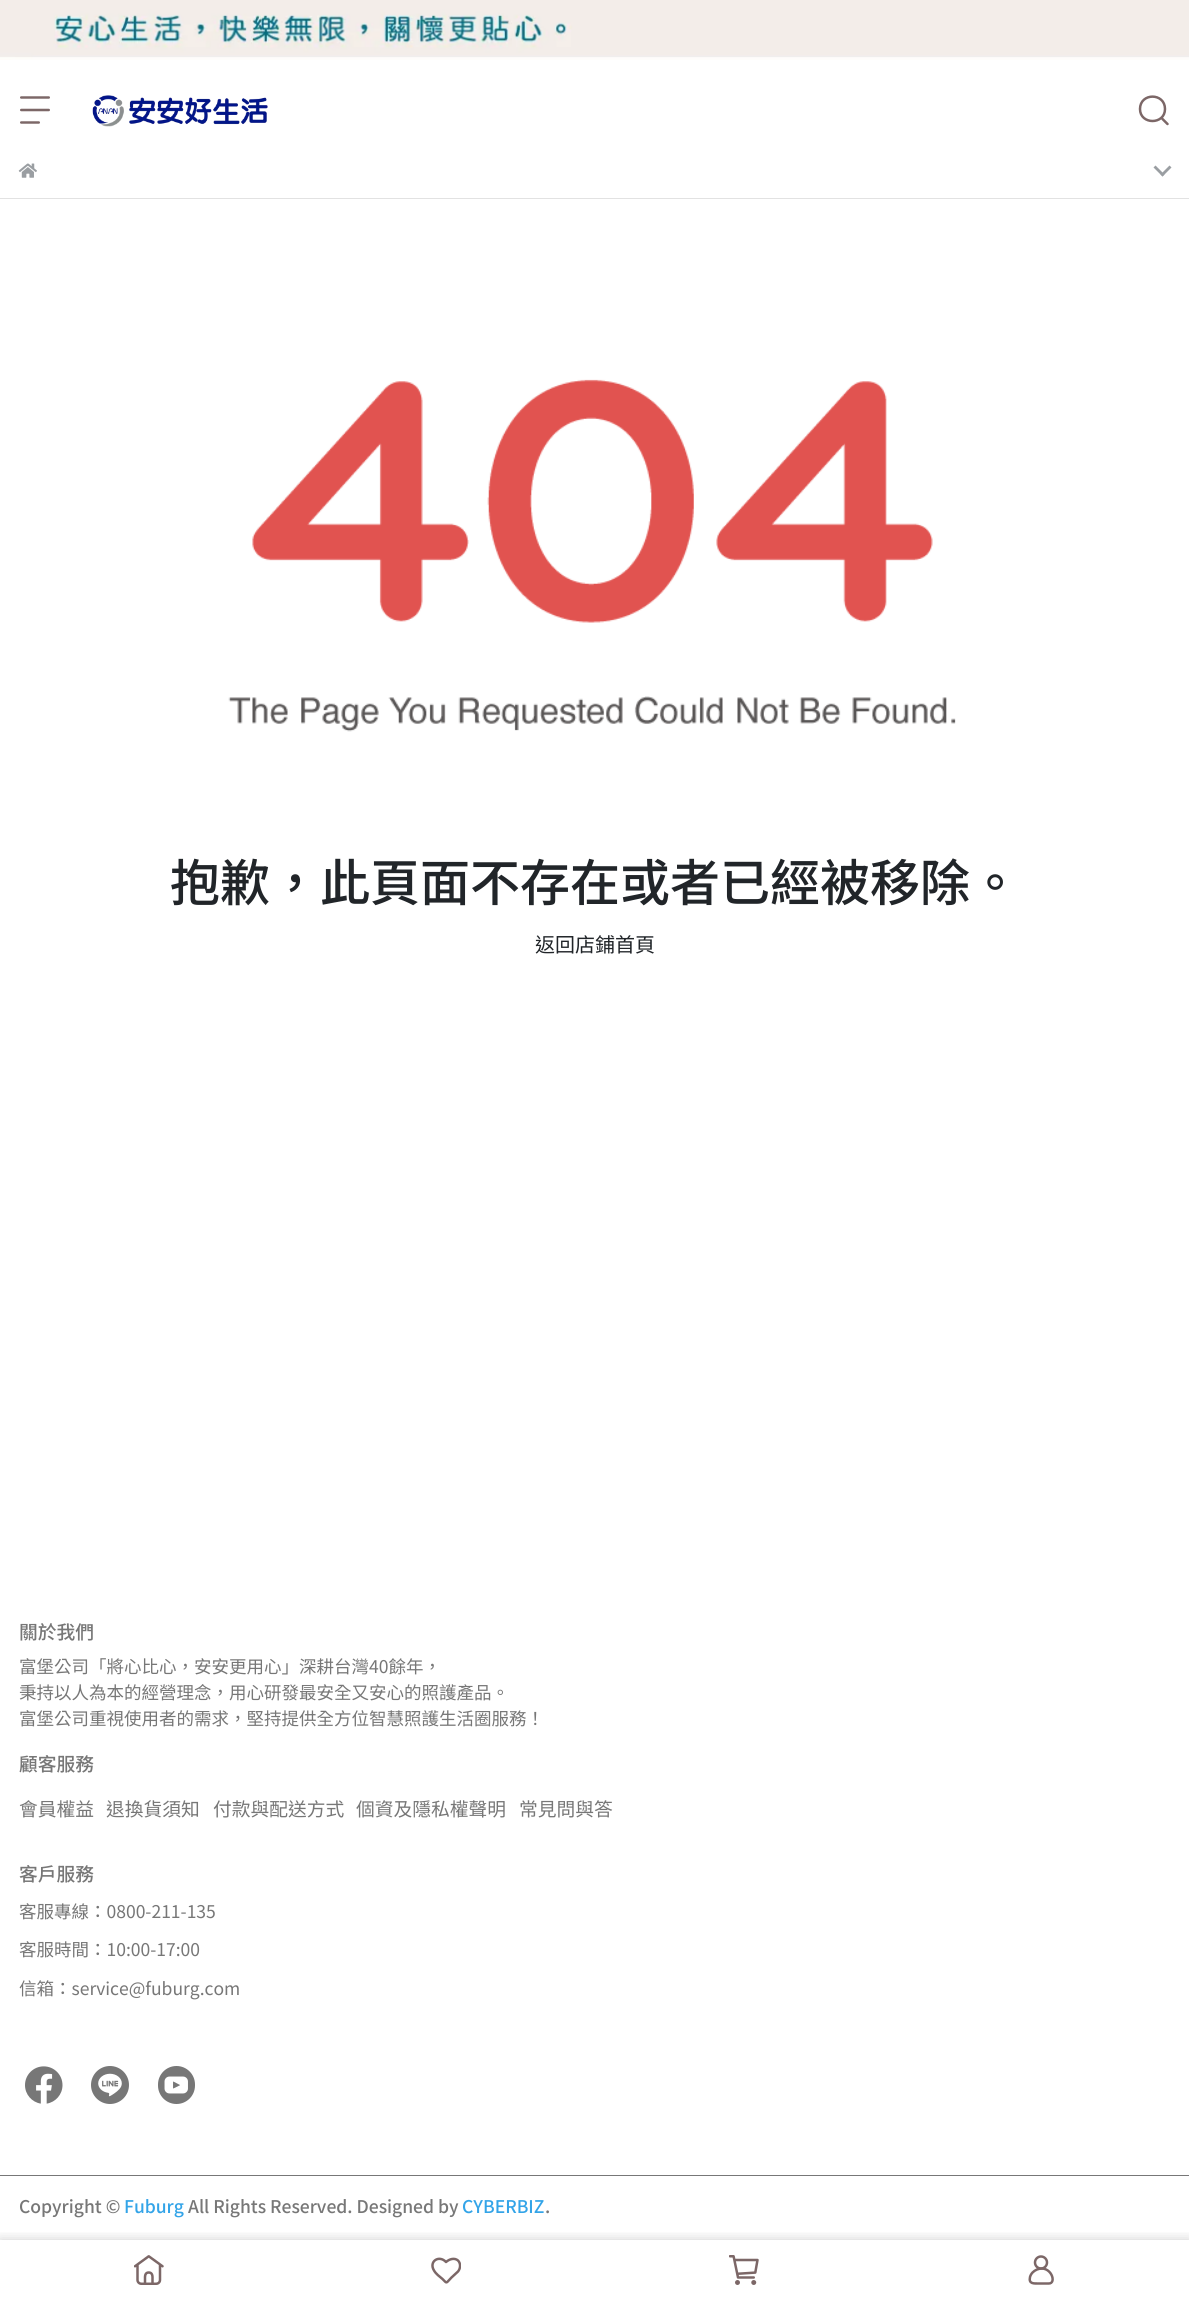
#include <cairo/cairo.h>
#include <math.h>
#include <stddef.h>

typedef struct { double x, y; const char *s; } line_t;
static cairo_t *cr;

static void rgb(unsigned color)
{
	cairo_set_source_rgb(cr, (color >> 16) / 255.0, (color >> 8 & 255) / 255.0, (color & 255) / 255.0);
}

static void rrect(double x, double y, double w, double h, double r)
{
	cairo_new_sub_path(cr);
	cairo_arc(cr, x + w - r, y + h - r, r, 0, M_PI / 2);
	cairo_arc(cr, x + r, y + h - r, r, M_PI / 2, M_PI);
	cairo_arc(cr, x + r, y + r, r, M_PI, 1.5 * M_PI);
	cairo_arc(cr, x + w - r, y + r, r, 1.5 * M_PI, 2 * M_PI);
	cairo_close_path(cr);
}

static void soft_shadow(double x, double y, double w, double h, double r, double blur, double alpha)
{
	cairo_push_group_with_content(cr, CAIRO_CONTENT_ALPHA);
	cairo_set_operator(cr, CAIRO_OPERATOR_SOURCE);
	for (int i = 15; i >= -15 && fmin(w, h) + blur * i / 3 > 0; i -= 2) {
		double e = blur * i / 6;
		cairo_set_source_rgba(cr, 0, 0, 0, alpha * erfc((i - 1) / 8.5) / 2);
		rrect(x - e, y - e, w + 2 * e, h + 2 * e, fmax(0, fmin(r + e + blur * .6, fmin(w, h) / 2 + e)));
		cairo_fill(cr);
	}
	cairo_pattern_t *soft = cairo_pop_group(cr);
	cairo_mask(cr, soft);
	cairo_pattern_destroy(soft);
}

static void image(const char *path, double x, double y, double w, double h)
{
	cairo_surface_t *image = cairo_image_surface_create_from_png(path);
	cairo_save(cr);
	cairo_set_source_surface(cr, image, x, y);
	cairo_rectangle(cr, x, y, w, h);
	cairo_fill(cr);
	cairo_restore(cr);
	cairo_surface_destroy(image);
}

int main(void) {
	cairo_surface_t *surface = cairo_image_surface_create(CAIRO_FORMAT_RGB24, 1189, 2300);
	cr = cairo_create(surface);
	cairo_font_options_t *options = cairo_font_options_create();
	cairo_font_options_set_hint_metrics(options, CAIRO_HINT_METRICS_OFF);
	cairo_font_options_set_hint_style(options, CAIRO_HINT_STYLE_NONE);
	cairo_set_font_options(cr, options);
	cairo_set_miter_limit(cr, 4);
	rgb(0xffffff);
	cairo_paint(cr);
	image("img/1.png", 0, 0, 1189, 60);
	image("img/2.png", 20, 96, 30, 28);
	image("img/3.png", 92, 95, 176, 32);
	cairo_new_path(cr);
	cairo_move_to(cr, 1165, 109);
	cairo_curve_to(cr, 1165, 125, 1140, 125, 1140, 109);
	cairo_curve_to(cr, 1140, 92.5, 1165, 92.5, 1165, 109);
	cairo_close_path(cr);
	cairo_move_to(cr, 1162.5, 119);
	cairo_line_to(cr, 1167.5, 124);
	rgb(0x7c6767);
	cairo_set_line_width(cr, 2.5);
	cairo_set_line_cap(cr, CAIRO_LINE_CAP_ROUND);
	cairo_set_line_join(cr, CAIRO_LINE_JOIN_ROUND);
	cairo_stroke(cr);
	cairo_save(cr);
	cairo_rectangle(cr, 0, 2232, 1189, 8);
	cairo_clip(cr);
	rgb(0x000000);
	soft_shadow(0, 2240, 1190, 60, 0, 6, 0.2);
	cairo_restore(cr);
	image("img/4.png", 134, 2255, 30, 30);
	cairo_save(cr);
	cairo_rectangle(cr, 431, 2255, 30, 30);
	cairo_clip(cr);
	cairo_new_path(cr);
	cairo_move_to(cr, 458, 2260.5);
	cairo_curve_to(cr, 454.5, 2257.5, 449.5, 2259, 446, 2262);
	cairo_curve_to(cr, 439, 2254.5, 428.5, 2261.5, 434, 2270.5);
	cairo_curve_to(cr, 436, 2274, 439.5, 2276.5, 442.5, 2279);
	cairo_curve_to(cr, 447.5, 2284, 445.5, 2283.5, 451.5, 2277.5);
	cairo_line_to(cr, 458, 2271.5);
	cairo_curve_to(cr, 460.5, 2268.5, 461, 2263.5, 458, 2260.5);
	cairo_close_path(cr);
	cairo_stroke(cr);
	cairo_restore(cr);
	image("img/5.png", 729, 2255, 30, 30);
	cairo_arc(cr, 1041, 2262.5, 6, 0, 2 * M_PI);
	cairo_set_line_cap(cr, CAIRO_LINE_CAP_BUTT);
	cairo_set_line_join(cr, CAIRO_LINE_JOIN_MITER);
	cairo_stroke(cr);
	cairo_new_path(cr);
	cairo_move_to(cr, 1048.5, 2283.5);
	cairo_line_to(cr, 1039, 2283.5);
	cairo_curve_to(cr, 1033.5, 2283.5, 1028.5, 2284, 1030, 2277);
	cairo_curve_to(cr, 1031, 2273.5, 1033.5, 2271, 1037, 2269.5);
	cairo_curve_to(cr, 1051, 2264, 1057.5, 2284, 1048.5, 2283.5);
	cairo_close_path(cr);
	cairo_stroke(cr);
	rgb(0xe2e2e2);
	cairo_rectangle(cr, 0, 198, 1189, 1);
	cairo_fill(cr);
	image("img/6.png", 18, 163, 19, 15);
	rgb(0x9a9ea2);
	cairo_new_path(cr);
	cairo_move_to(cr, 1160.5, 174.5);
	cairo_line_to(cr, 1169.5, 165.5);
	cairo_line_to(cr, 1171.5, 167.5);
	cairo_line_to(cr, 1162.5, 176.5);
	cairo_close_path(cr);
	cairo_fill(cr);
	cairo_new_path(cr);
	cairo_move_to(cr, 1153.5, 167.5);
	cairo_line_to(cr, 1155.5, 165.5);
	cairo_line_to(cr, 1164.5, 174.5);
	cairo_line_to(cr, 1162.5, 176.5);
	cairo_close_path(cr);
	cairo_fill(cr);
	image("img/7.png", 228, 379, 728, 353);
	image("img/8.png", 25, 2066, 38, 38);
	image("img/9.png", 91, 2066, 38, 38);
	image("img/10.png", 158, 2066, 37, 38);
	rgb(0x777777);
	cairo_rectangle(cr, 0, 2175, 1189, 1);
	cairo_fill(cr);
	cairo_select_font_face(cr, "Noto Sans TC Medium", CAIRO_FONT_SLANT_NORMAL, CAIRO_FONT_WEIGHT_NORMAL);
	cairo_set_font_size(cr, 50);
	rgb(0x212529);
	cairo_move_to(cr, 170, 901);
	cairo_show_text(cr, "抱歉，此頁面不存在或者已經被移除。");
	cairo_select_font_face(cr, "Noto Sans TC", CAIRO_FONT_SLANT_NORMAL, CAIRO_FONT_WEIGHT_NORMAL);
	cairo_set_font_size(cr, 20);
	cairo_move_to(cr, 535, 952);
	cairo_show_text(cr, "返回店鋪首頁");
	cairo_select_font_face(cr, "Noto Sans TC Medium", CAIRO_FONT_SLANT_NORMAL, CAIRO_FONT_WEIGHT_NORMAL);
	cairo_set_font_size(cr, 18.75);
	rgb(0x777777);
	cairo_move_to(cr, 19, 1639);
	cairo_show_text(cr, "關於我們");
	cairo_select_font_face(cr, "Noto Sans TC", CAIRO_FONT_SLANT_NORMAL, CAIRO_FONT_WEIGHT_NORMAL);
	cairo_set_font_size(cr, 17.5);
	{
		static const line_t items[] = {
			{19, 1673, "富堡公司「將心比心，安安更用心」深耕台灣40餘年，"},
			{19, 1699, "秉持以人為本的經營理念，用心研發最安全又安心的照護產品。"},
			{19, 1725, "富堡公司重視使用者的需求，堅持提供全方位智慧照護生活圈服務！"},
		};
		for (size_t i = 0; i < sizeof items / sizeof *items; i++) {
			cairo_move_to(cr, items[i].x, items[i].y);
			cairo_show_text(cr, items[i].s);
		}
	}
	cairo_select_font_face(cr, "Noto Sans TC Medium", CAIRO_FONT_SLANT_NORMAL, CAIRO_FONT_WEIGHT_NORMAL);
	cairo_set_font_size(cr, 18.75);
	cairo_move_to(cr, 19, 1771);
	cairo_show_text(cr, "顧客服務");
	cairo_select_font_face(cr, "Noto Sans TC", CAIRO_FONT_SLANT_NORMAL, CAIRO_FONT_WEIGHT_NORMAL);
	{
		static const line_t items[] = {
			{19, 1816, "會員權益"},
			{106, 1816, "退換貨須知"},
			{213, 1816, "付款與配送方式"},
			{356, 1816, "個資及隱私權聲明"},
			{519, 1816, "常見問與答"},
		};
		for (size_t i = 0; i < sizeof items / sizeof *items; i++) {
			cairo_move_to(cr, items[i].x, items[i].y);
			cairo_show_text(cr, items[i].s);
		}
	}
	cairo_select_font_face(cr, "Noto Sans TC Medium", CAIRO_FONT_SLANT_NORMAL, CAIRO_FONT_WEIGHT_NORMAL);
	cairo_move_to(cr, 19, 1881);
	cairo_show_text(cr, "客戶服務");
	cairo_select_font_face(cr, "Noto Sans TC", CAIRO_FONT_SLANT_NORMAL, CAIRO_FONT_WEIGHT_NORMAL);
	cairo_set_font_size(cr, 17.5);
	{
		static const line_t items[] = {
			{19, 1918, "客服專線：0800-211-135"},
			{19, 1956, "客服時間：10:00-17:00"},
			{19, 1995, "信箱：service@fuburg.com"},
		};
		for (size_t i = 0; i < sizeof items / sizeof *items; i++) {
			cairo_move_to(cr, items[i].x, items[i].y);
			cairo_show_text(cr, items[i].s);
		}
	}
	cairo_select_font_face(cr, "Noto Sans TC Medium", CAIRO_FONT_SLANT_NORMAL, CAIRO_FONT_WEIGHT_NORMAL);
	cairo_move_to(cr, 19, 2213);
	cairo_show_text(cr, "Copyright ©");
	rgb(0x33a4e8);
	cairo_move_to(cr, 124, 2213);
	cairo_show_text(cr, "Fuburg");
	rgb(0x777777);
	cairo_move_to(cr, 188, 2213);
	cairo_show_text(cr, "All Rights Reserved. Designed by");
	rgb(0x33a4e8);
	cairo_move_to(cr, 462, 2213);
	cairo_show_text(cr, "CYBERBIZ");
	rgb(0x777777);
	cairo_move_to(cr, 545, 2213);
	cairo_show_text(cr, ".");
	cairo_surface_write_to_png(surface, "page.png");
	cairo_font_options_destroy(options);
	cairo_destroy(cr);
	cairo_surface_destroy(surface);
	return 0;
}
